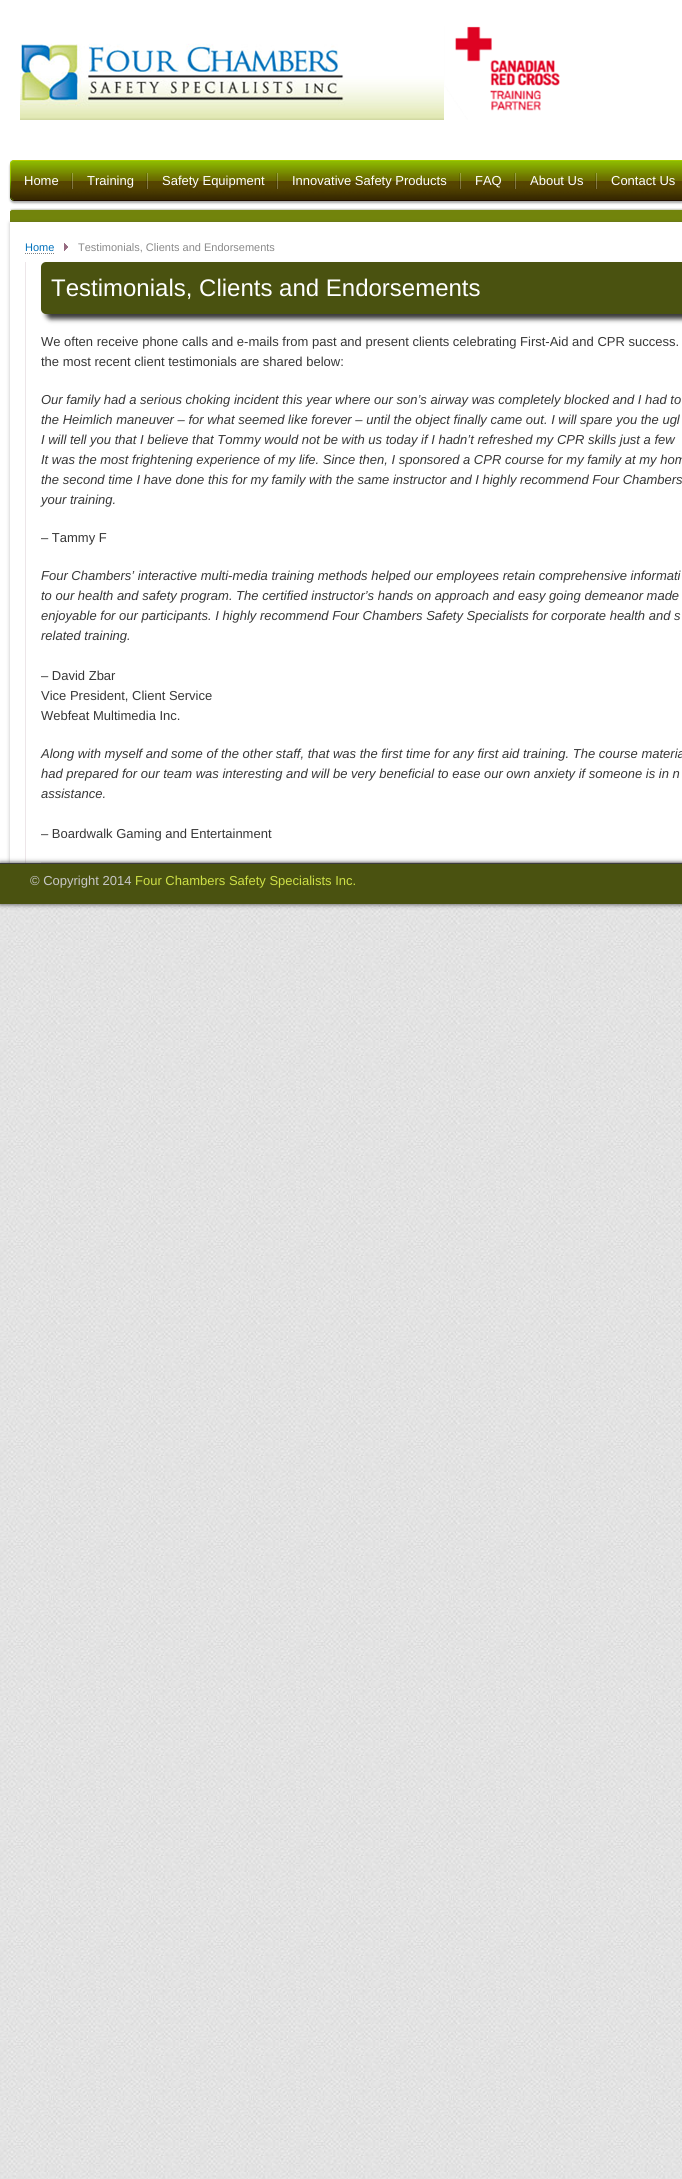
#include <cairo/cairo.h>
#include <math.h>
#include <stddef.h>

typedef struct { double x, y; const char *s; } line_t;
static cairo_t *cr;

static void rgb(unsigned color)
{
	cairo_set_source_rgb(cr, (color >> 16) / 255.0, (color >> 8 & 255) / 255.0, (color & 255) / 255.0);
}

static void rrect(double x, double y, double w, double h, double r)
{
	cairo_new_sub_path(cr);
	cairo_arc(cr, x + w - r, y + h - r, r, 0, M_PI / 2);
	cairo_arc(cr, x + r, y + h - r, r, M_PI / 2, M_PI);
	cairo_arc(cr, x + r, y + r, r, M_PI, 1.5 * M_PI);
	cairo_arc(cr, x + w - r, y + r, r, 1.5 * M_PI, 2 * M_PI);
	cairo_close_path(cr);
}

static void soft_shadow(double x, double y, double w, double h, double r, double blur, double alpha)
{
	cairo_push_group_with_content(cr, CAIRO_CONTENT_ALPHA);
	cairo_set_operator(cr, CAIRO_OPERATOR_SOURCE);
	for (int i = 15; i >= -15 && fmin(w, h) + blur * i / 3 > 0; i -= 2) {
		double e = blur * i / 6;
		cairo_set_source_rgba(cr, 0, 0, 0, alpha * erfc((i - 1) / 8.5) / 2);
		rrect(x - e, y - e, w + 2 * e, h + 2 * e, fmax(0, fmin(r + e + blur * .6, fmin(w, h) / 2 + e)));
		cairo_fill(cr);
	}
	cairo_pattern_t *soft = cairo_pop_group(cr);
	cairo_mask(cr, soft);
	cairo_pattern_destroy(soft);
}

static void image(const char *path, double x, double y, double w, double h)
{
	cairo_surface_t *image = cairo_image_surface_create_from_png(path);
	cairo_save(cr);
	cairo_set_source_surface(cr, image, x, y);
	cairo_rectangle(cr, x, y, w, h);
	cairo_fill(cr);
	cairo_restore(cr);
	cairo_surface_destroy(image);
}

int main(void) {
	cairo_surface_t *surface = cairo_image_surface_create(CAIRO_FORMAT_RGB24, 682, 2179);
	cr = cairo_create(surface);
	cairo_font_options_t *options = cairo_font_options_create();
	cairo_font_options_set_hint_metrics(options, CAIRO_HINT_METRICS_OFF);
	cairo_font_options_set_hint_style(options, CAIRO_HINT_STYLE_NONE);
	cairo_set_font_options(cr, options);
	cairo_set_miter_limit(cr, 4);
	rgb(0xffffff);
	cairo_paint(cr);
	image("img/1.png", 0, 904, 682, 1275);
	image("img/2.png", 20, 26, 540, 94);
	rgb(0x2c2c2c);
	soft_shadow(10, 162, 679, 41, 4, 1, 0.4);
	image("img/3.png", 10, 160, 672, 41);
	image("img/4.png", 71, 173, 2, 16);
	image("img/5.png", 146, 173, 2, 16);
	image("img/6.png", 276, 173, 2, 16);
	image("img/6.png", 459, 173, 2, 16);
	image("img/4.png", 514, 173, 2, 16);
	image("img/7.png", 595, 173, 2, 16);
	image("img/8.png", 10, 208, 672, 14);
	soft_shadow(10, 223, 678, 641, 0, 2, 0.3);
	rgb(0xffffff);
	cairo_rectangle(cr, 10, 222, 672, 641);
	cairo_fill(cr);
	image("img/9.png", 64, 243, 4, 8);
	cairo_new_path(cr);
	cairo_move_to(cr, 25, 253.5);
	cairo_line_to(cr, 54, 253.5);
	rgb(0x828282);
	cairo_set_line_width(cr, 1);
	cairo_set_dash(cr, (double[]){1, 1}, 2, 0);
	cairo_stroke(cr);
	rgb(0xede6e9);
	cairo_rectangle(cr, 25, 262, 1, 601);
	cairo_fill(cr);
	cairo_rectangle(cr, 41, 862, 641, 1);
	cairo_fill(cr);
	rgb(0x383838);
	soft_shadow(46, 267, 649, 52, 5, 2.5, 1);
	rgb(0x4a5210);
	rrect(41, 262, 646, 52, 5);
	cairo_fill(cr);
	rgb(0x2c2c2c);
	soft_shadow(0, 863, 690, 41, 0, 2.5, 0.9);
	rgb(0x4a5210);
	cairo_rectangle(cr, 0, 864, 682, 40);
	cairo_fill(cr);
	rgb(0x3c3c3c);
	cairo_rectangle(cr, 0, 863, 682, 1);
	cairo_fill(cr);
	cairo_select_font_face(cr, "Liberation Sans", CAIRO_FONT_SLANT_NORMAL, CAIRO_FONT_WEIGHT_NORMAL);
	cairo_set_font_size(cr, 13);
	rgb(0xffffff);
	{
		static const line_t items[] = {
			{24, 185, "Home"},
			{87, 185, "Training"},
			{162, 185, "Safety Equipment"},
			{292, 185, "Innovative Safety Products"},
			{475, 185, "FAQ"},
			{530, 185, "About Us"},
			{611, 185, "Contact Us"},
		};
		for (size_t i = 0; i < sizeof items / sizeof *items; i++) {
			cairo_move_to(cr, items[i].x, items[i].y);
			cairo_show_text(cr, items[i].s);
		}
	}
	cairo_set_font_size(cr, 11);
	rgb(0x0171bc);
	cairo_move_to(cr, 25, 251);
	cairo_show_text(cr, "Home");
	rgb(0x8a8a8a);
	cairo_move_to(cr, 78, 251);
	cairo_show_text(cr, "Testimonials, Clients and Endorsements");
	cairo_set_font_size(cr, 24);
	rgb(0xffffff);
	cairo_move_to(cr, 51, 296);
	cairo_show_text(cr, "Testimonials, Clients and Endorsements");
	cairo_set_font_size(cr, 13);
	rgb(0x373737);
	cairo_move_to(cr, 41, 346);
	cairo_show_text(cr, "We often receive phone calls and e-mails from past and present clients celebrating First-Aid and CPR success.");
	cairo_move_to(cr, 41, 366);
	cairo_show_text(cr, "the most recent client testimonials are shared below:");
	cairo_select_font_face(cr, "Liberation Sans", CAIRO_FONT_SLANT_ITALIC, CAIRO_FONT_WEIGHT_NORMAL);
	{
		static const line_t items[] = {
			{41, 404, "Our family had a serious choking incident this year where our son’s airway was completely blocked and I had to"},
			{41, 424, "the Heimlich maneuver – for what seemed like forever – until the object finally came out. I will spare you the ugl"},
			{41, 444, "I will tell you that I believe that Tommy would not be with us today if I hadn’t refreshed my CPR skills just a few"},
			{41, 464, "It was the most frightening experience of my life. Since then, I sponsored a CPR course for my family at my hom"},
			{41, 484, "the second time I have done this for my family with the same instructor and I highly recommend Four Chambers"},
			{41, 504, "your training."},
		};
		for (size_t i = 0; i < sizeof items / sizeof *items; i++) {
			cairo_move_to(cr, items[i].x, items[i].y);
			cairo_show_text(cr, items[i].s);
		}
	}
	cairo_select_font_face(cr, "Liberation Sans", CAIRO_FONT_SLANT_NORMAL, CAIRO_FONT_WEIGHT_NORMAL);
	cairo_move_to(cr, 41, 542);
	cairo_show_text(cr, "– Tammy F");
	cairo_select_font_face(cr, "Liberation Sans", CAIRO_FONT_SLANT_ITALIC, CAIRO_FONT_WEIGHT_NORMAL);
	{
		static const line_t items[] = {
			{41, 580, "Four Chambers’ interactive multi-media training methods helped our employees retain comprehensive informati"},
			{41, 600, "to our health and safety program. The certified instructor’s hands on approach and easy going demeanor made"},
			{41, 620, "enjoyable for our participants. I highly recommend Four Chambers Safety Specialists for corporate health and s"},
			{41, 640, "related training."},
		};
		for (size_t i = 0; i < sizeof items / sizeof *items; i++) {
			cairo_move_to(cr, items[i].x, items[i].y);
			cairo_show_text(cr, items[i].s);
		}
	}
	cairo_select_font_face(cr, "Liberation Sans", CAIRO_FONT_SLANT_NORMAL, CAIRO_FONT_WEIGHT_NORMAL);
	{
		static const line_t items[] = {
			{41, 680, "– David Zbar"},
			{41, 700, "Vice President, Client Service"},
			{41, 720, "Webfeat Multimedia Inc."},
		};
		for (size_t i = 0; i < sizeof items / sizeof *items; i++) {
			cairo_move_to(cr, items[i].x, items[i].y);
			cairo_show_text(cr, items[i].s);
		}
	}
	cairo_select_font_face(cr, "Liberation Sans", CAIRO_FONT_SLANT_ITALIC, CAIRO_FONT_WEIGHT_NORMAL);
	{
		static const line_t items[] = {
			{41, 758, "Along with myself and some of the other staff, that was the first time for any first aid training. The course materia"},
			{41, 778, "had prepared for our team was interesting and will be very beneficial to ease our own anxiety if someone is in n"},
			{41, 798, "assistance."},
		};
		for (size_t i = 0; i < sizeof items / sizeof *items; i++) {
			cairo_move_to(cr, items[i].x, items[i].y);
			cairo_show_text(cr, items[i].s);
		}
	}
	cairo_select_font_face(cr, "Liberation Sans", CAIRO_FONT_SLANT_NORMAL, CAIRO_FONT_WEIGHT_NORMAL);
	cairo_move_to(cr, 41, 838);
	cairo_show_text(cr, "– Boardwalk Gaming and Entertainment");
	rgb(0xc7c7c7);
	cairo_move_to(cr, 30, 885);
	cairo_show_text(cr, "© Copyright 2014");
	rgb(0xcee047);
	cairo_move_to(cr, 135, 885);
	cairo_show_text(cr, "Four Chambers Safety Specialists Inc.");
	cairo_surface_write_to_png(surface, "page.png");
	cairo_font_options_destroy(options);
	cairo_destroy(cr);
	cairo_surface_destroy(surface);
	return 0;
}
